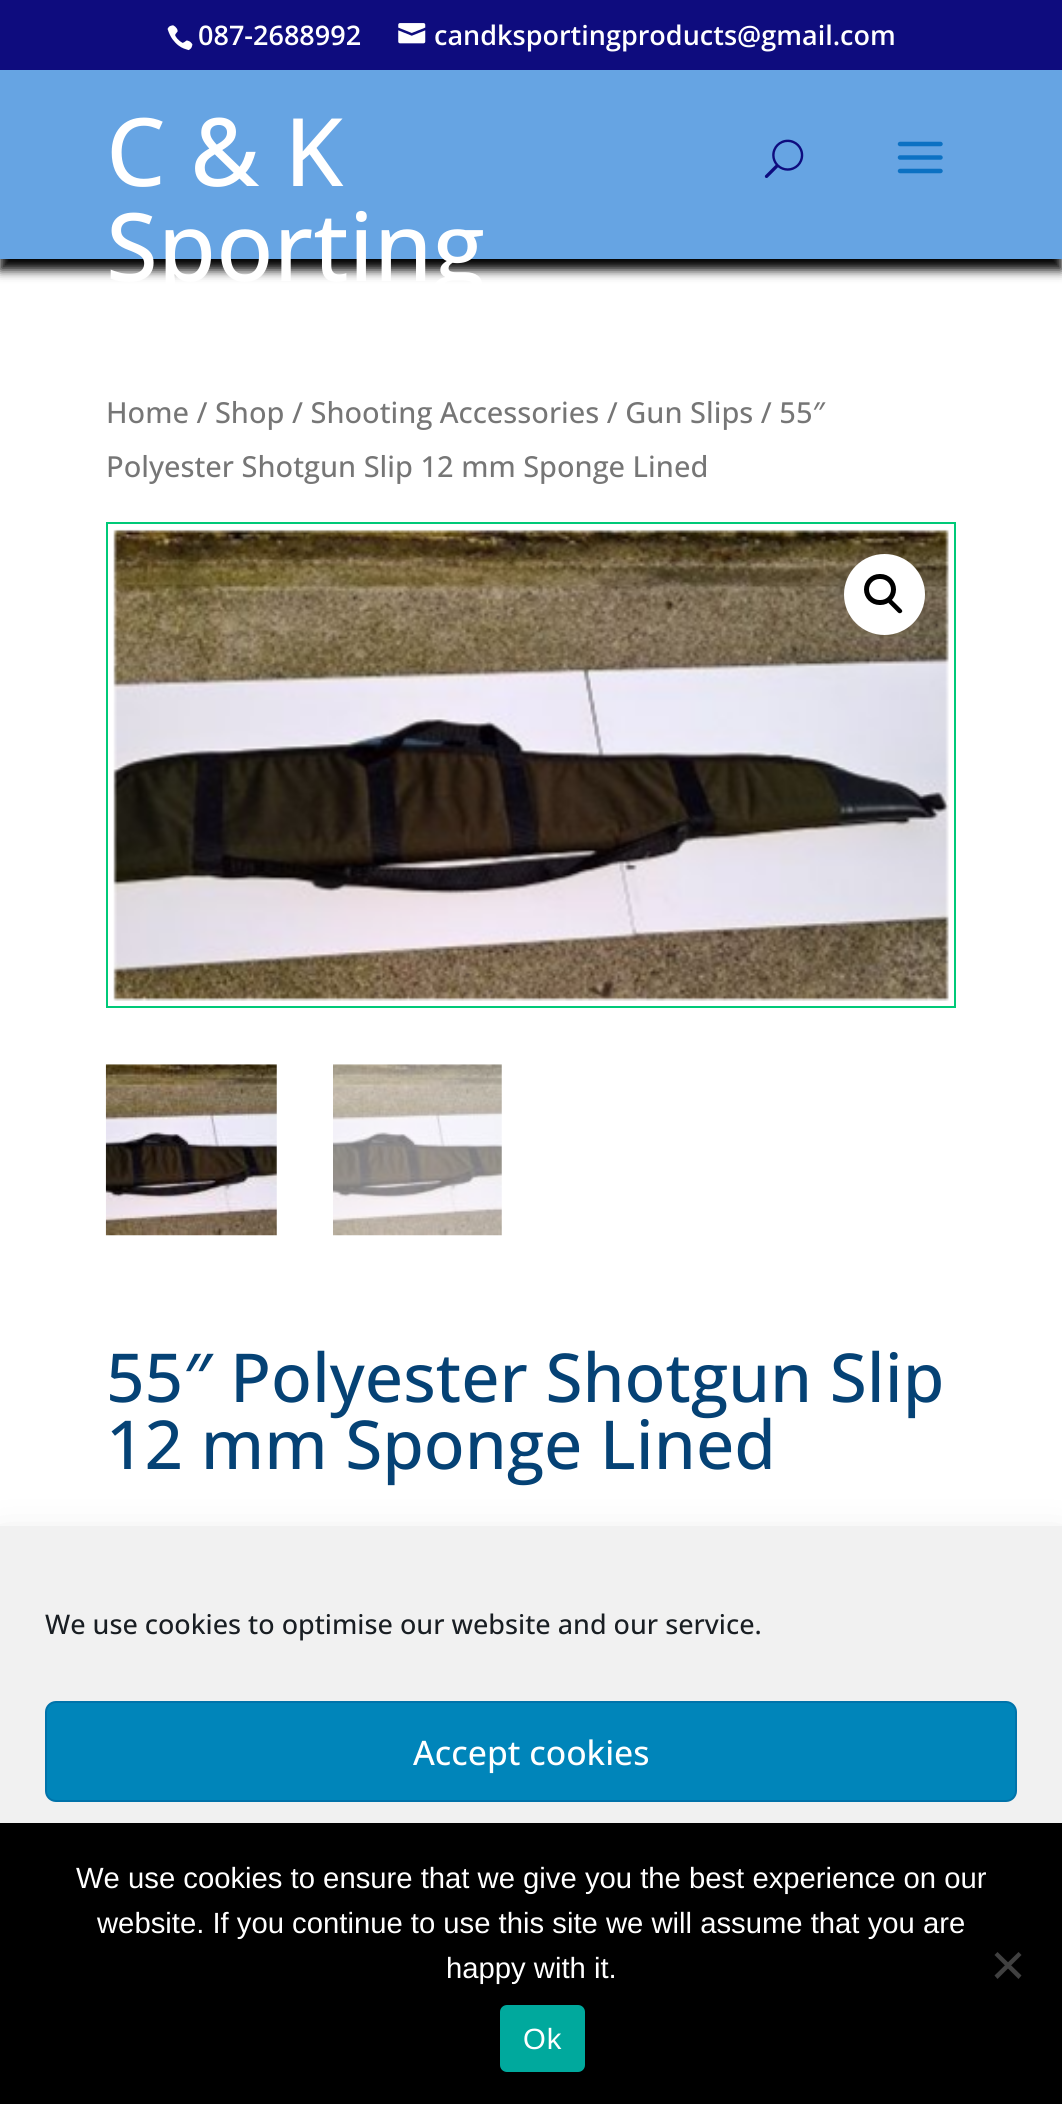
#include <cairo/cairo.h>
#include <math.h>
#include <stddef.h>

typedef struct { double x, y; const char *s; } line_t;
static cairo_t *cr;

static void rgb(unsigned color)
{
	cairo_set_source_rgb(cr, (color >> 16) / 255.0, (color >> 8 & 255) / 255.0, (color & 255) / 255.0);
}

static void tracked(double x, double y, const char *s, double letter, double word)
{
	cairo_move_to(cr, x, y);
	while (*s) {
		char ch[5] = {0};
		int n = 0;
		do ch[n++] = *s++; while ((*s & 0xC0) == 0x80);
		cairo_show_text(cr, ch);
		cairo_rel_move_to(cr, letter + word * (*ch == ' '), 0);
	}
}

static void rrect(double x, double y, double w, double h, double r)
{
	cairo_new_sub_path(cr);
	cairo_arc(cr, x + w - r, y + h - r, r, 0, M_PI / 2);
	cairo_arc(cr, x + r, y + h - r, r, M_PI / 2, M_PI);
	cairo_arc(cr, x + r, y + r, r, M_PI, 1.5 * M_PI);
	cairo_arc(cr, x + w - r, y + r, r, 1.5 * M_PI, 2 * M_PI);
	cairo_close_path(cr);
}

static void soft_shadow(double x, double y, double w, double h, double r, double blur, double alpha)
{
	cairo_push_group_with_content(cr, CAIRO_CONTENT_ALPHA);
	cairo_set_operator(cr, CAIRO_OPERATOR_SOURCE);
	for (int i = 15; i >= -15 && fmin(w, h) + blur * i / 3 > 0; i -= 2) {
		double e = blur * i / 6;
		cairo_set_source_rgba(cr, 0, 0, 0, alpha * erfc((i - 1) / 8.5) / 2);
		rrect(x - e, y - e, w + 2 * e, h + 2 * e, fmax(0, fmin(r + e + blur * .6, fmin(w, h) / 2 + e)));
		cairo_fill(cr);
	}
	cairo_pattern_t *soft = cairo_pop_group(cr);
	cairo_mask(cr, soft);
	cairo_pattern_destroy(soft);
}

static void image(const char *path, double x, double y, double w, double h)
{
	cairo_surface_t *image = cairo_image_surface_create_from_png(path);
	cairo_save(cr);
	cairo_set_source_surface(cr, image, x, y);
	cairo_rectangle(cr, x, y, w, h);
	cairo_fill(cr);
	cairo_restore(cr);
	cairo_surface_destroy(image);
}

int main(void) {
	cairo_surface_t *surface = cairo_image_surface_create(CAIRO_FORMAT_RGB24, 1062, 2104);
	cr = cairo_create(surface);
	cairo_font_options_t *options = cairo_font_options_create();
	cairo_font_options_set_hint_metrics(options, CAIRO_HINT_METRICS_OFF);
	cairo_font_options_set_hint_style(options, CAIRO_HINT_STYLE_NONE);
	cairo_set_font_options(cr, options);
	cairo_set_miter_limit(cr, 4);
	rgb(0xffffff);
	cairo_paint(cr);
	cairo_save(cr);
	cairo_set_fill_rule(cr, CAIRO_FILL_RULE_EVEN_ODD);
	cairo_new_path(cr);
	cairo_move_to(cr, 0, 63);
	cairo_line_to(cr, 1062, 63);
	cairo_line_to(cr, 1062, 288);
	cairo_line_to(cr, 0, 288);
	cairo_close_path(cr);
	cairo_move_to(cr, 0, 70);
	cairo_line_to(cr, 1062, 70);
	cairo_line_to(cr, 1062, 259);
	cairo_line_to(cr, 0, 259);
	cairo_close_path(cr);
	cairo_clip(cr);
	rgb(0x000000);
	soft_shadow(0, 81, 1062, 189, 0, 5.5, 1);
	cairo_restore(cr);
	rgb(0x0e0c7e);
	cairo_rectangle(cr, 0, 0, 1062, 70);
	cairo_fill(cr);
	image("img/1.png", 167, 25, 26, 26);
	image("img/2.png", 398, 23, 28, 21);
	cairo_set_source_rgba(cr, 0, 0.408, 0.82, 0.6);
	cairo_rectangle(cr, 0, 70, 1062, 189);
	cairo_fill(cr);
	image("img/3.png", 764, 139, 40, 39);
	image("img/4.png", 897, 141, 46, 33);
	cairo_rectangle(cr, 107, 523, 848, 484);
	rgb(0x00c978);
	cairo_stroke(cr);
	image("img/5.png", 113, 529, 836, 472);
	rgb(0xffffff);
	cairo_arc(cr, 884.5, 594.5, 40.5, 0, 2 * M_PI);
	cairo_fill(cr);
	rrect(866.5, 576.5, 27, 26, 13);
	rgb(0x000000);
	cairo_set_line_width(cr, 5);
	cairo_stroke(cr);
	cairo_new_path(cr);
	cairo_move_to(cr, 888.5, 600);
	cairo_curve_to(cr, 889.5, 599, 891, 599, 892, 600);
	cairo_line_to(cr, 901.5, 609.5);
	cairo_curve_to(cr, 902.5, 610.5, 902.5, 612, 901.5, 612.5);
	cairo_curve_to(cr, 900.5, 613.5, 899, 613.5, 898, 612.5);
	cairo_line_to(cr, 888.5, 603);
	cairo_curve_to(cr, 888, 602, 888, 601, 888.5, 600);
	cairo_close_path(cr);
	cairo_fill(cr);
	image("img/6.png", 105, 1064, 172, 172);
	image("img/7.png", 333, 1064, 169, 172);
	rgb(0x000000);
	soft_shadow(0, 1548, 1062, 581, 0, 22.5, 0.19);
	rgb(0xf1f1f1);
	cairo_rectangle(cr, 0, 1526, 1062, 297);
	cairo_fill(cr);
	rgb(0x0085ba);
	rrect(46, 1702, 970, 99, 10);
	cairo_fill_preserve(cr);
	rgb(0x0073aa);
	cairo_set_line_width(cr, 2);
	cairo_stroke(cr);
	rgb(0x000000);
	cairo_rectangle(cr, 0, 1823, 1062, 281);
	cairo_fill(cr);
	rgb(0x404040);
	cairo_new_path(cr);
	cairo_move_to(cr, 1018.5, 1952);
	cairo_line_to(cr, 1021.5, 1955);
	cairo_line_to(cr, 997.5, 1979);
	cairo_line_to(cr, 994.5, 1975.5);
	cairo_close_path(cr);
	cairo_fill(cr);
	cairo_new_path(cr);
	cairo_move_to(cr, 994.5, 1955);
	cairo_line_to(cr, 997.5, 1952);
	cairo_line_to(cr, 1021.5, 1975.5);
	cairo_line_to(cr, 1018.5, 1979);
	cairo_close_path(cr);
	cairo_fill(cr);
	rgb(0x00a99d);
	rrect(500, 2005, 85, 67, 7);
	cairo_fill(cr);
	cairo_select_font_face(cr, "Open Sans SemiBold", CAIRO_FONT_SLANT_NORMAL, CAIRO_FONT_WEIGHT_NORMAL);
	cairo_set_font_size(cr, 27);
	rgb(0xffffff);
	cairo_move_to(cr, 198, 45);
	cairo_show_text(cr, "087-2688992");
	cairo_move_to(cr, 434, 45);
	cairo_show_text(cr, "candksportingproducts@gmail.com");
	cairo_select_font_face(cr, "Open Sans Medium", CAIRO_FONT_SLANT_NORMAL, CAIRO_FONT_WEIGHT_NORMAL);
	cairo_set_font_size(cr, 94.5);
	cairo_move_to(cr, 106, 186);
	cairo_show_text(cr, "C & K");
	cairo_move_to(cr, 106, 281);
	cairo_show_text(cr, "Sporting");
	cairo_set_font_size(cr, 29);
	rgb(0x767676);
	cairo_move_to(cr, 106, 423);
	cairo_show_text(cr, "Home / Shop / Shooting Accessories / Gun Slips / 55″");
	cairo_move_to(cr, 106, 477);
	cairo_show_text(cr, "Polyester Shotgun Slip 12 mm Sponge Lined");
	cairo_set_font_size(cr, 67.5);
	rgb(0x054275);
	cairo_move_to(cr, 106, 1402);
	cairo_show_text(cr, "55″ Polyester Shotgun Slip");
	cairo_move_to(cr, 106, 1469);
	cairo_show_text(cr, "12 mm Sponge Lined");
	cairo_set_font_size(cr, 27);
	rgb(0x191e23);
	cairo_move_to(cr, 45, 1634);
	cairo_show_text(cr, "We use cookies to optimise our website and our service.");
	cairo_set_font_size(cr, 33.75);
	rgb(0xffffff);
	cairo_move_to(cr, 413, 1765);
	cairo_show_text(cr, "Accept cookies");
	cairo_select_font_face(cr, "Liberation Sans", CAIRO_FONT_SLANT_NORMAL, CAIRO_FONT_WEIGHT_NORMAL);
	cairo_set_font_size(cr, 29.25);
	{
		static const line_t items[] = {
			{76, 1888, "We use cookies to ensure that we give you the best experience on our"},
			{97, 1933, "website. If you continue to use this site we will assume that you are"},
			{446, 1978, "happy with it."},
		};
		for (size_t i = 0; i < sizeof items / sizeof *items; i++) {
			cairo_move_to(cr, items[i].x, items[i].y);
			cairo_show_text(cr, items[i].s);
		}
	}
	tracked(523, 2049, "Ok", 1, 0);
	cairo_surface_write_to_png(surface, "page.png");
	cairo_font_options_destroy(options);
	cairo_destroy(cr);
	cairo_surface_destroy(surface);
	return 0;
}
